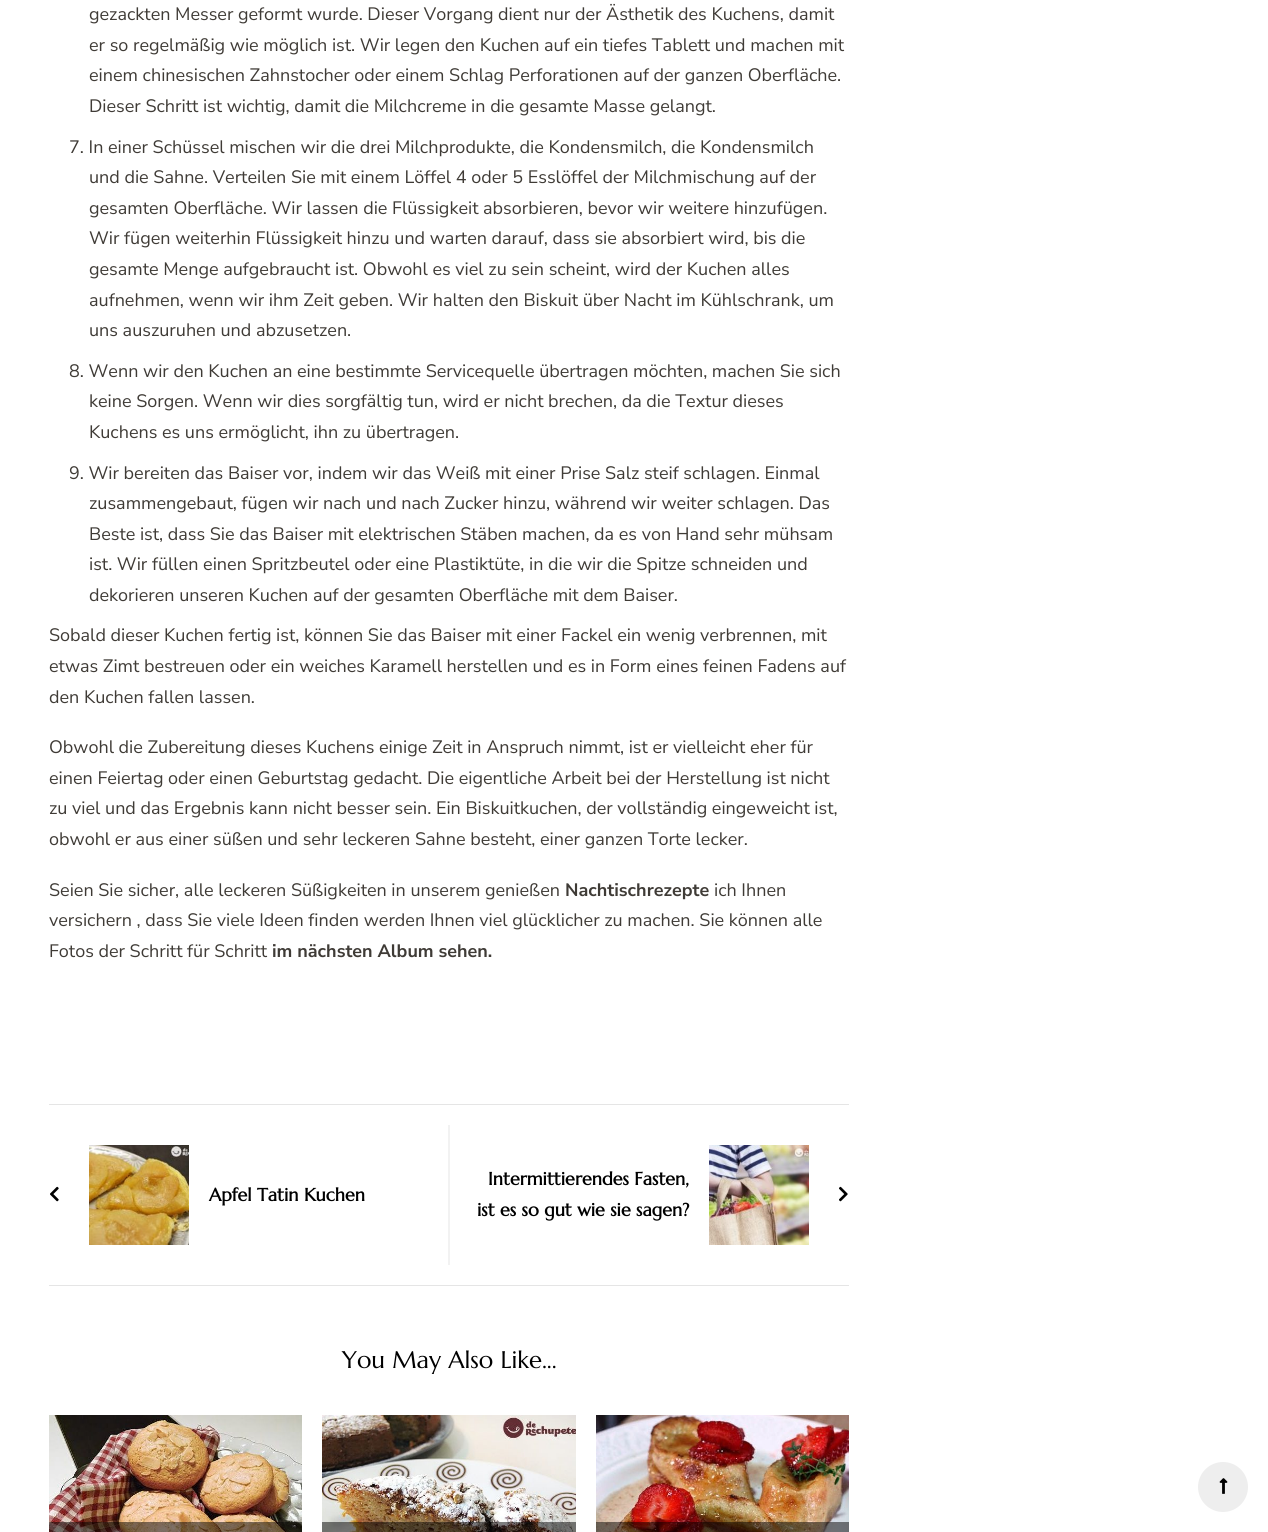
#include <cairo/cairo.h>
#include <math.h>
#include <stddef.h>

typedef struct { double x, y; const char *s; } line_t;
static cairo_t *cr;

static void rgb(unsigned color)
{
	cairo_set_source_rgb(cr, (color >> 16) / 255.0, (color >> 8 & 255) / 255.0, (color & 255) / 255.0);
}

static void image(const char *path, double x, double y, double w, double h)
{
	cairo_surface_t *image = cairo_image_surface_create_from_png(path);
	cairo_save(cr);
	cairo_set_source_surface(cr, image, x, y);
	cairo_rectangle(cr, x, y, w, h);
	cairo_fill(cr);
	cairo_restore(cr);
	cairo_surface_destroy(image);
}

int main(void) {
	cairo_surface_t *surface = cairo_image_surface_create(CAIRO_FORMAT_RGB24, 1268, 1532);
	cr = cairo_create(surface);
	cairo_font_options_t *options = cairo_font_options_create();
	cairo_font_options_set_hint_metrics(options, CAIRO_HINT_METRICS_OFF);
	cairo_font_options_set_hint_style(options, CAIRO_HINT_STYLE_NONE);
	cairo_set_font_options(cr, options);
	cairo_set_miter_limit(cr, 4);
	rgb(0xffffff);
	cairo_paint(cr);
	rgb(0xe5e5e5);
	cairo_rectangle(cr, 49, 1104, 800, 1);
	cairo_fill(cr);
	cairo_rectangle(cr, 49, 1285, 800, 1);
	cairo_fill(cr);
	image("img/1.png", 50, 1186, 9, 16);
	image("img/2.png", 89, 1145, 100, 100);
	rgb(0xf2f2f2);
	cairo_rectangle(cr, 448, 1125, 2, 140);
	cairo_fill(cr);
	image("img/3.png", 709, 1145, 100, 100);
	image("img/4.png", 839, 1186, 9, 16);
	image("img/5.png", 49, 1415, 253, 117);
	cairo_set_source_rgba(cr, 0, 0, 0, 0.5);
	cairo_rectangle(cr, 49, 1522, 253, 10);
	cairo_fill(cr);
	image("img/6.png", 322, 1415, 254, 117);
	cairo_rectangle(cr, 322, 1522, 254, 10);
	cairo_fill(cr);
	image("img/7.png", 596, 1415, 253, 117);
	cairo_rectangle(cr, 596, 1522, 253, 10);
	cairo_fill(cr);
	rgb(0xeeeeee);
	cairo_arc(cr, 1223, 1487, 25, 0, 2 * M_PI);
	cairo_fill(cr);
	image("img/8.png", 1219, 1478, 9, 16);
	cairo_select_font_face(cr, "Nunito Sans", CAIRO_FONT_SLANT_NORMAL, CAIRO_FONT_WEIGHT_NORMAL);
	cairo_set_font_size(cr, 18);
	rgb(0x3f3b36);
	{
		static const line_t items[] = {
			{89, 20, "gezackten Messer geformt wurde. Dieser Vorgang dient nur der Ästhetik des Kuchens, damit"},
			{89, 51, "er so regelmäßig wie möglich ist. Wir legen den Kuchen auf ein tiefes Tablett und machen mit"},
			{89, 81, "einem chinesischen Zahnstocher oder einem Schlag Perforationen auf der ganzen Oberfläche."},
			{89, 112, "Dieser Schritt ist wichtig, damit die Milchcreme in die gesamte Masse gelangt."},
			{69, 153, "7. In einer Schüssel mischen wir die drei Milchprodukte, die Kondensmilch, die Kondensmilch"},
			{89, 183, "und die Sahne. Verteilen Sie mit einem Löffel 4 oder 5 Esslöffel der Milchmischung auf der"},
			{89, 214, "gesamten Oberfläche. Wir lassen die Flüssigkeit absorbieren, bevor wir weitere hinzufügen."},
			{89, 244, "Wir fügen weiterhin Flüssigkeit hinzu und warten darauf, dass sie absorbiert wird, bis die"},
			{89, 275, "gesamte Menge aufgebraucht ist. Obwohl es viel zu sein scheint, wird der Kuchen alles"},
			{89, 306, "aufnehmen, wenn wir ihm Zeit geben. Wir halten den Biskuit über Nacht im Kühlschrank, um"},
			{89, 336, "uns auszuruhen und abzusetzen."},
			{69, 377, "8. Wenn wir den Kuchen an eine bestimmte Servicequelle übertragen möchten, machen Sie sich"},
			{89, 407, "keine Sorgen. Wenn wir dies sorgfältig tun, wird er nicht brechen, da die Textur dieses"},
			{89, 438, "Kuchens es uns ermöglicht, ihn zu übertragen."},
			{69, 479, "9. Wir bereiten das Baiser vor, indem wir das Weiß mit einer Prise Salz steif schlagen. Einmal"},
			{89, 509, "zusammengebaut, fügen wir nach und nach Zucker hinzu, während wir weiter schlagen. Das"},
			{89, 540, "Beste ist, dass Sie das Baiser mit elektrischen Stäben machen, da es von Hand sehr mühsam"},
			{89, 570, "ist. Wir füllen einen Spritzbeutel oder eine Plastiktüte, in die wir die Spitze schneiden und"},
			{89, 601, "dekorieren unseren Kuchen auf der gesamten Oberfläche mit dem Baiser."},
			{49, 641, "Sobald dieser Kuchen fertig ist, können Sie das Baiser mit einer Fackel ein wenig verbrennen, mit"},
			{49, 672, "etwas Zimt bestreuen oder ein weiches Karamell herstellen und es in Form eines feinen Fadens auf"},
			{49, 703, "den Kuchen fallen lassen."},
			{49, 753, "Obwohl die Zubereitung dieses Kuchens einige Zeit in Anspruch nimmt, ist er vielleicht eher für"},
			{49, 784, "einen Feiertag oder einen Geburtstag gedacht. Die eigentliche Arbeit bei der Herstellung ist nicht"},
			{49, 814, "zu viel und das Ergebnis kann nicht besser sein. Ein Biskuitkuchen, der vollständig eingeweicht ist,"},
			{49, 845, "obwohl er aus einer süßen und sehr leckeren Sahne besteht, einer ganzen Torte lecker."},
			{49, 896, "Seien Sie sicher, alle leckeren Süßigkeiten in unserem genießen"},
		};
		for (size_t i = 0; i < sizeof items / sizeof *items; i++) {
			cairo_move_to(cr, items[i].x, items[i].y);
			cairo_show_text(cr, items[i].s);
		}
	}
	cairo_select_font_face(cr, "Nunito Sans", CAIRO_FONT_SLANT_NORMAL, CAIRO_FONT_WEIGHT_BOLD);
	cairo_move_to(cr, 565, 896);
	cairo_show_text(cr, "Nachtischrezepte");
	cairo_select_font_face(cr, "Nunito Sans", CAIRO_FONT_SLANT_NORMAL, CAIRO_FONT_WEIGHT_NORMAL);
	{
		static const line_t items[] = {
			{714, 896, "ich Ihnen"},
			{49, 926, "versichern , dass Sie viele Ideen finden werden Ihnen viel glücklicher zu machen. Sie können alle"},
			{49, 957, "Fotos der Schritt für Schritt"},
		};
		for (size_t i = 0; i < sizeof items / sizeof *items; i++) {
			cairo_move_to(cr, items[i].x, items[i].y);
			cairo_show_text(cr, items[i].s);
		}
	}
	cairo_select_font_face(cr, "Nunito Sans", CAIRO_FONT_SLANT_NORMAL, CAIRO_FONT_WEIGHT_BOLD);
	cairo_move_to(cr, 272, 957);
	cairo_show_text(cr, "im nächsten Album sehen.");
	cairo_select_font_face(cr, "Marcellus", CAIRO_FONT_SLANT_NORMAL, CAIRO_FONT_WEIGHT_BOLD);
	rgb(0x000000);
	{
		static const line_t items[] = {
			{209, 1201, "Apfel Tatin Kuchen"},
			{488, 1185, "Intermittierendes Fasten,"},
			{477, 1216, "ist es so gut wie sie sagen?"},
		};
		for (size_t i = 0; i < sizeof items / sizeof *items; i++) {
			cairo_move_to(cr, items[i].x, items[i].y);
			cairo_show_text(cr, items[i].s);
		}
	}
	cairo_select_font_face(cr, "Marcellus", CAIRO_FONT_SLANT_NORMAL, CAIRO_FONT_WEIGHT_NORMAL);
	cairo_set_font_size(cr, 24);
	cairo_move_to(cr, 342, 1368);
	cairo_show_text(cr, "You May Also Like...");
	cairo_surface_write_to_png(surface, "page.png");
	cairo_font_options_destroy(options);
	cairo_destroy(cr);
	cairo_surface_destroy(surface);
	return 0;
}
